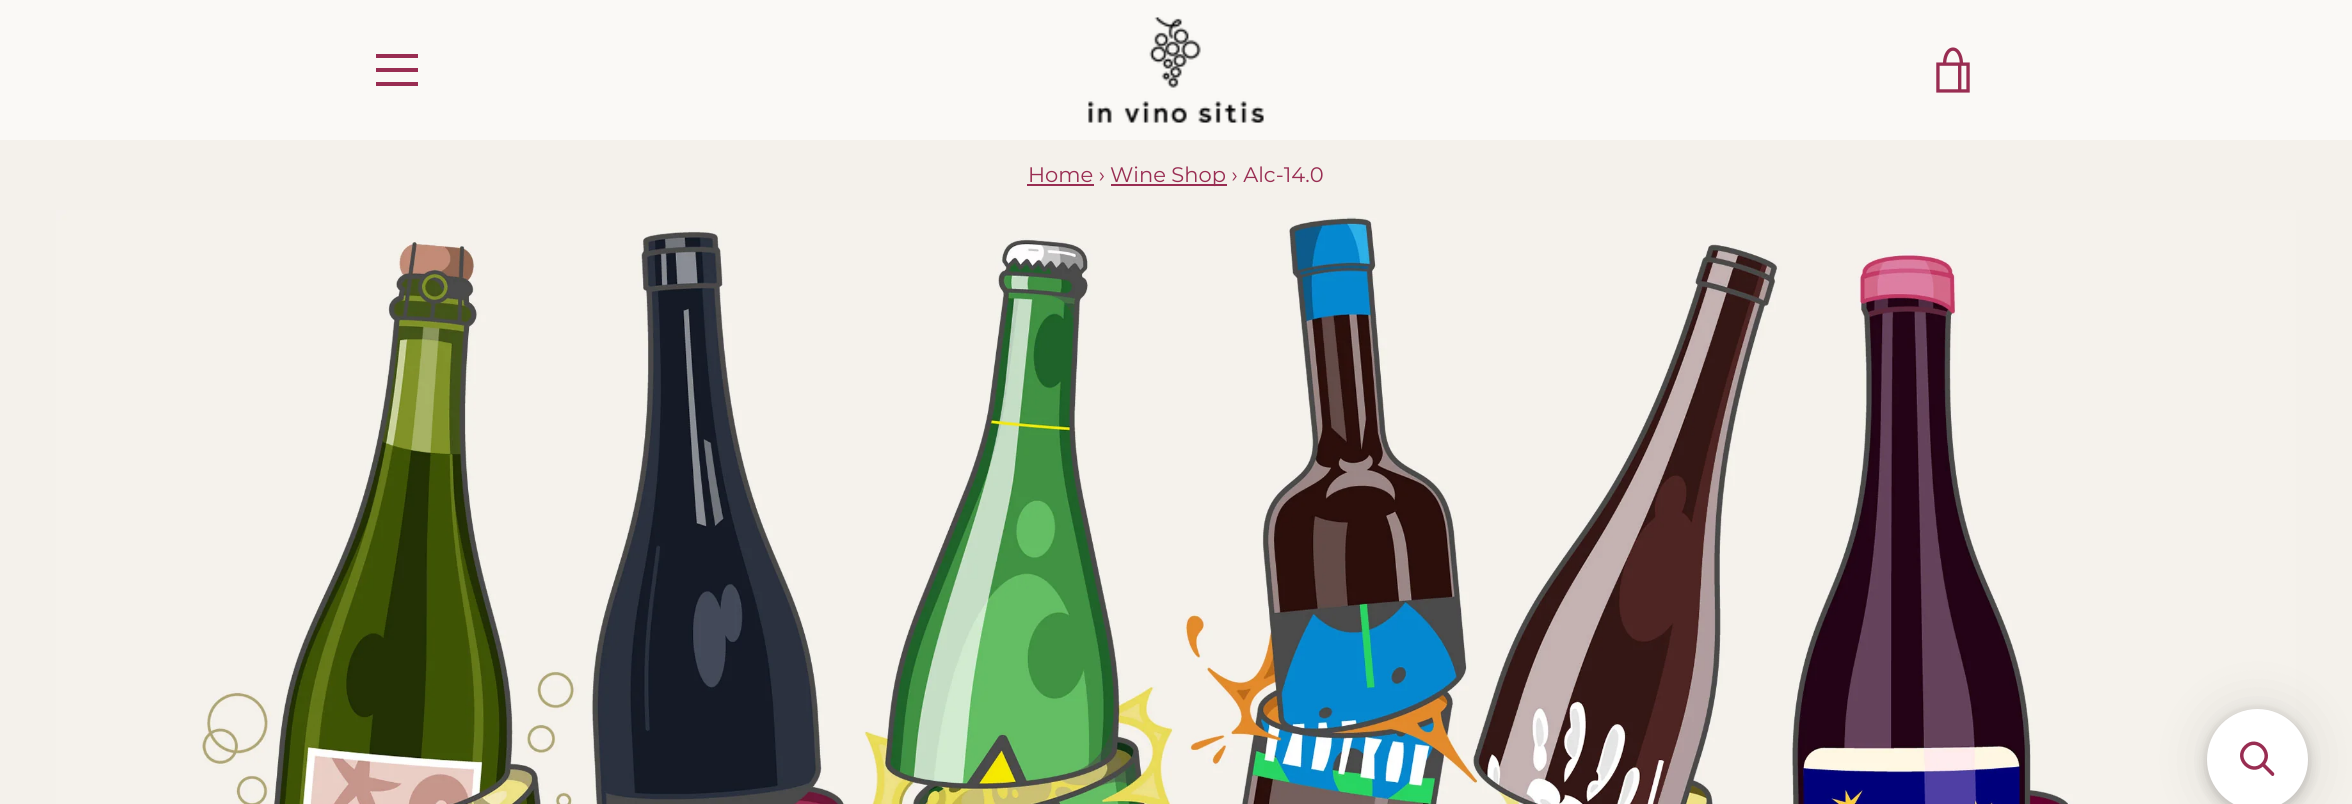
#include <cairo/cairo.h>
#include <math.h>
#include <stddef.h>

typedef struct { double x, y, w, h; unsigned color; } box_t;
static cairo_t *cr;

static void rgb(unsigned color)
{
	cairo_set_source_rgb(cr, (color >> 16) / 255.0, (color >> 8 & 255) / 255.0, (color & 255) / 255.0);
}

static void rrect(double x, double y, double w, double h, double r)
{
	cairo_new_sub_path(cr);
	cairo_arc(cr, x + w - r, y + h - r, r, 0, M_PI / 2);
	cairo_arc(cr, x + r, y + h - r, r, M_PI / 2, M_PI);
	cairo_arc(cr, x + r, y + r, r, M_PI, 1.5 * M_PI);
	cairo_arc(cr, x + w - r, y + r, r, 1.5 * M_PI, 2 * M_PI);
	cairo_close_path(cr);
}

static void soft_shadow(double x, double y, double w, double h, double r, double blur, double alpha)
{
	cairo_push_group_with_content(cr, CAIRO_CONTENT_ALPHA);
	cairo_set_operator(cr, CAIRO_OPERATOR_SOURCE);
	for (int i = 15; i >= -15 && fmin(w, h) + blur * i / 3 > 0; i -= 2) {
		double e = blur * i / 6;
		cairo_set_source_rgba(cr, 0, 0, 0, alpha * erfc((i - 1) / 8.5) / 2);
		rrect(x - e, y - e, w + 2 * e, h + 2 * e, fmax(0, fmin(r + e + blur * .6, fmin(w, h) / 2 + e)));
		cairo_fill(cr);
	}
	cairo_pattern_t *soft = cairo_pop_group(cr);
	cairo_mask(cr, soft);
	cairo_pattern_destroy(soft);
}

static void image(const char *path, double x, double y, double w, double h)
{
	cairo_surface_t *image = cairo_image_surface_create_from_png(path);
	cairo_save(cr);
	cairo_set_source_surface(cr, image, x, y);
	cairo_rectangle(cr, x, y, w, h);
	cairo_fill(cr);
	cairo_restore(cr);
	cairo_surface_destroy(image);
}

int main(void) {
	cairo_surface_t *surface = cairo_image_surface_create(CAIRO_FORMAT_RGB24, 2352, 804);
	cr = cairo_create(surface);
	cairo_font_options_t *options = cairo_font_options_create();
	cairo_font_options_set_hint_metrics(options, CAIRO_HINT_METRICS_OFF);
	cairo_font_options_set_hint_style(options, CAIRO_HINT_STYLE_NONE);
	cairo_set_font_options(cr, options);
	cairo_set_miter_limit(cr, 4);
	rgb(0xf4f1eb);
	cairo_paint(cr);
	{
		static const box_t items[] = {
			{0, 0, 2352, 140, 0xfaf9f6},
			{376, 54, 42, 4, 0x992d52},
			{376, 68, 42, 4, 0x992d52},
			{376, 82, 42, 4, 0x992d52},
		};
		for (size_t i = 0; i < sizeof items / sizeof *items; i++) {
			rgb(items[i].color);
			cairo_rectangle(cr, items[i].x, items[i].y, items[i].w, items[i].h);
			cairo_fill(cr);
		}
	}
	image("img/1.png", 1088, 17, 176, 106);
	image("img/2.png", 1936, 47, 34, 46);
	cairo_rectangle(cr, 1027, 184, 67, 2);
	cairo_fill(cr);
	cairo_rectangle(cr, 1111, 184, 116, 2);
	cairo_fill(cr);
	image("img/3.png", 56, 210, 2240, 594);
	rgb(0x000000);
	soft_shadow(2207, 716, 101, 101, 50.5, 7, 0.05);
	soft_shadow(2207, 712, 101, 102, 50.5, 7, 0.15);
	soft_shadow(2207, 709, 101, 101, 50.5, 26, 0.1);
	rgb(0xffffff);
	cairo_arc(cr, 2257.5, 759.5, 50.5, 0, 2 * M_PI);
	cairo_fill(cr);
	cairo_new_path(cr);
	cairo_move_to(cr, 2245.5, 747);
	cairo_curve_to(cr, 2256.5, 735.5, 2274, 753, 2262.5, 764.5);
	cairo_curve_to(cr, 2251.5, 775.5, 2234, 758.5, 2245.5, 747);
	cairo_close_path(cr);
	rgb(0x992d52);
	cairo_set_line_width(cr, 3.5);
	cairo_stroke(cr);
	cairo_new_path(cr);
	cairo_move_to(cr, 2261.5, 765.5);
	cairo_line_to(cr, 2264, 763);
	cairo_line_to(cr, 2274, 773);
	cairo_curve_to(cr, 2275, 775, 2273, 777, 2271.5, 775.5);
	cairo_close_path(cr);
	cairo_fill(cr);
	cairo_select_font_face(cr, "Montserrat", CAIRO_FONT_SLANT_NORMAL, CAIRO_FONT_WEIGHT_NORMAL);
	cairo_set_font_size(cr, 21);
	cairo_move_to(cr, 1028, 182);
	cairo_show_text(cr, "Home ›");
	cairo_move_to(cr, 1110, 182);
	cairo_show_text(cr, "Wine Shop › Alc-14.0");
	cairo_surface_write_to_png(surface, "page.png");
	cairo_font_options_destroy(options);
	cairo_destroy(cr);
	cairo_surface_destroy(surface);
	return 0;
}
